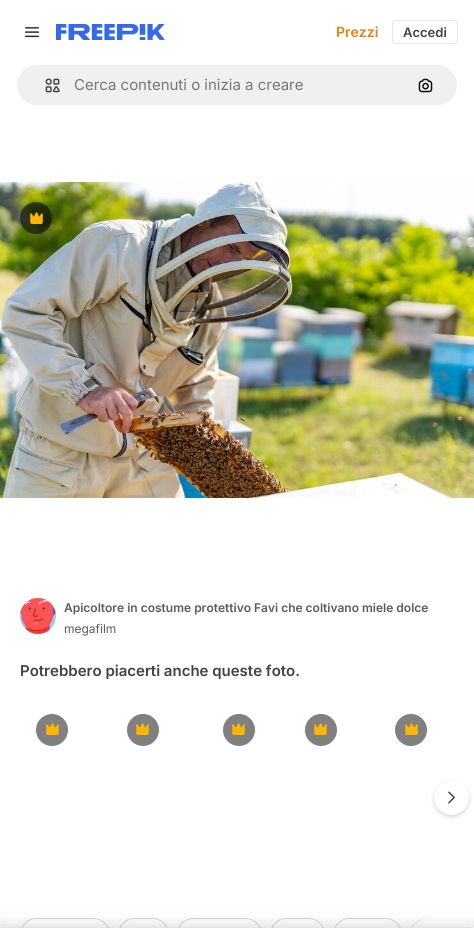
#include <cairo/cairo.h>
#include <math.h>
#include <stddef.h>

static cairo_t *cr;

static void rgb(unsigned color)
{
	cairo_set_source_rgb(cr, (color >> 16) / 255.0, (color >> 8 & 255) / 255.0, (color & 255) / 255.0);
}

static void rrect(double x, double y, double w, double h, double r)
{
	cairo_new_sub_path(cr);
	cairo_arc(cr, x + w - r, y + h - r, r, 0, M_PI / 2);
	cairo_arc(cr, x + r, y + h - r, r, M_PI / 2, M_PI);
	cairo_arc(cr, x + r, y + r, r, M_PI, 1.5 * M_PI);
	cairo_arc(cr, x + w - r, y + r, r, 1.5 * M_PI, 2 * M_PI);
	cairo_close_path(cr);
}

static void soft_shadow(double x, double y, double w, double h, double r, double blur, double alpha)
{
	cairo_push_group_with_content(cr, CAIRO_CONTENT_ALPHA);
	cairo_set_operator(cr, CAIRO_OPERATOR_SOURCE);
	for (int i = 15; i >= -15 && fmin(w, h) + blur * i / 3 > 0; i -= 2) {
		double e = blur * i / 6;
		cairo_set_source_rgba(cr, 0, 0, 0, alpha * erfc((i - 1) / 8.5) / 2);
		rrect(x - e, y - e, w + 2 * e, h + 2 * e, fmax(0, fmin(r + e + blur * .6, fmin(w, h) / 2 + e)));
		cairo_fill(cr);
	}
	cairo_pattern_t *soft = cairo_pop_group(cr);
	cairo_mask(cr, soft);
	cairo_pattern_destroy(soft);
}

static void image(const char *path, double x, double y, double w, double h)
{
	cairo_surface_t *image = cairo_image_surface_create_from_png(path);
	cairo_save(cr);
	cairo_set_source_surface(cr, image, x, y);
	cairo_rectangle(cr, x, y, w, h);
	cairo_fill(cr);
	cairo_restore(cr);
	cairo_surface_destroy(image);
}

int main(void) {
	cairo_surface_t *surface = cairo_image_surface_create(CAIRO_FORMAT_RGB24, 474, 928);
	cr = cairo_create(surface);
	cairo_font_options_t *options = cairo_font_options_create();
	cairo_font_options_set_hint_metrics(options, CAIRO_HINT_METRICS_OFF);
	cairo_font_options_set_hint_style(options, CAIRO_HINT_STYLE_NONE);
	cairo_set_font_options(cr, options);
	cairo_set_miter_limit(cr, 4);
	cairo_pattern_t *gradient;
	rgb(0xffffff);
	cairo_paint(cr);
	image("img/1.png", 25, 27, 14, 11);
	image("img/2.png", 56, 24, 109, 16);
	rrect(392.5, 20.5, 65, 23, 3.5);
	rgb(0xe7e7e7);
	cairo_set_line_width(cr, 1);
	cairo_stroke(cr);
	rgb(0xf0f0f0);
	rrect(16.5, 64.5, 441, 41, 20.5);
	cairo_fill_preserve(cr);
	rgb(0xffffff);
	cairo_stroke(cr);
	image("img/3.png", 45, 78, 15, 15);
	image("img/4.png", 418, 78, 15, 15);
	image("img/5.png", 0, 182, 474, 316);
	cairo_set_source_rgba(cr, 0.051, 0.051, 0.051, 0.6);
	cairo_arc(cr, 36, 218, 16, 0, 2 * M_PI);
	cairo_fill(cr);
	image("img/6.png", 30, 212, 13, 12);
	image("img/7.png", 20, 598, 36, 36);
	rgb(0x808080);
	cairo_arc(cr, 52, 730, 16, 0, 2 * M_PI);
	cairo_fill(cr);
	image("img/8.png", 46, 723, 13, 12);
	cairo_arc(cr, 143, 730, 16, 0, 2 * M_PI);
	cairo_fill(cr);
	image("img/8.png", 136, 723, 13, 12);
	cairo_arc(cr, 239, 730, 16, 0, 2 * M_PI);
	cairo_fill(cr);
	image("img/8.png", 232, 723, 13, 12);
	cairo_arc(cr, 321, 730, 16, 0, 2 * M_PI);
	cairo_fill(cr);
	image("img/8.png", 314, 723, 13, 12);
	cairo_arc(cr, 411, 730, 16, 0, 2 * M_PI);
	cairo_fill(cr);
	image("img/8.png", 405, 723, 13, 12);
	rgb(0x374957);
	soft_shadow(434, 782, 35, 35, 17.5, 2.5, 0.15);
	soft_shadow(434, 781, 35, 35, 17.5, 1, 0.1);
	rgb(0xffffff);
	cairo_arc(cr, 451.5, 797.5, 17.5, 0, 2 * M_PI);
	cairo_fill(cr);
	image("img/9.png", 448, 791, 7, 13);
	rrect(20.5, 918.5, 89, 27, 16);
	rgb(0xd8d8d8);
	cairo_stroke(cr);
	rrect(118.5, 918.5, 50, 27, 16);
	cairo_stroke(cr);
	rrect(177.5, 918.5, 84, 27, 16);
	cairo_stroke(cr);
	rrect(270.5, 918.5, 54, 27, 16);
	cairo_stroke(cr);
	rrect(333.5, 918.5, 68, 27, 16);
	cairo_stroke(cr);
	cairo_save(cr);
	cairo_rectangle(cr, 20, 918, 434, 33);
	cairo_clip(cr);
	rrect(410.5, 918.5, 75, 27, 16);
	cairo_stroke(cr);
	cairo_restore(cr);
	rgb(0xffffff);
	cairo_rectangle(cr, 434, 918, 20, 1);
	cairo_fill(cr);
	gradient = cairo_pattern_create_linear(434, 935, 399, 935);
	cairo_pattern_add_color_stop_rgba(gradient, 0, 1, 1, 1, 1);
	cairo_pattern_add_color_stop_rgba(gradient, 1, 1, 1, 1, 0);
	cairo_set_source(cr, gradient);
	cairo_pattern_destroy(gradient);
	cairo_rectangle(cr, 411, 918, 23, 10);
	cairo_fill(cr);
	rgb(0x000000);
	soft_shadow(0, 928, 474, 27, 0, 9, 0.2);
	cairo_select_font_face(cr, "Inter SemiBold", CAIRO_FONT_SLANT_NORMAL, CAIRO_FONT_WEIGHT_NORMAL);
	cairo_set_font_size(cr, 14);
	rgb(0xea7e11);
	cairo_move_to(cr, 336, 37);
	cairo_show_text(cr, "Prezzi");
	cairo_set_font_size(cr, 13);
	rgb(0x424242);
	cairo_move_to(cr, 403, 37);
	cairo_show_text(cr, "Accedi");
	cairo_select_font_face(cr, "Inter", CAIRO_FONT_SLANT_NORMAL, CAIRO_FONT_WEIGHT_NORMAL);
	cairo_set_font_size(cr, 15);
	rgb(0x777777);
	cairo_move_to(cr, 74, 90);
	cairo_show_text(cr, "Cerca contenuti o inizia a creare");
	cairo_select_font_face(cr, "Inter SemiBold", CAIRO_FONT_SLANT_NORMAL, CAIRO_FONT_WEIGHT_NORMAL);
	cairo_set_font_size(cr, 12);
	rgb(0x5c5c5c);
	cairo_move_to(cr, 64, 612);
	cairo_show_text(cr, "Apicoltore in costume protettivo Favi che coltivano miele dolce");
	cairo_select_font_face(cr, "Inter", CAIRO_FONT_SLANT_NORMAL, CAIRO_FONT_WEIGHT_NORMAL);
	cairo_move_to(cr, 64, 633);
	cairo_show_text(cr, "megafilm");
	cairo_select_font_face(cr, "Inter SemiBold", CAIRO_FONT_SLANT_NORMAL, CAIRO_FONT_WEIGHT_NORMAL);
	cairo_set_font_size(cr, 15);
	rgb(0x424242);
	cairo_move_to(cr, 20, 676);
	cairo_show_text(cr, "Potrebbero piacerti anche queste foto.");
	cairo_surface_write_to_png(surface, "page.png");
	cairo_font_options_destroy(options);
	cairo_destroy(cr);
	cairo_surface_destroy(surface);
	return 0;
}
